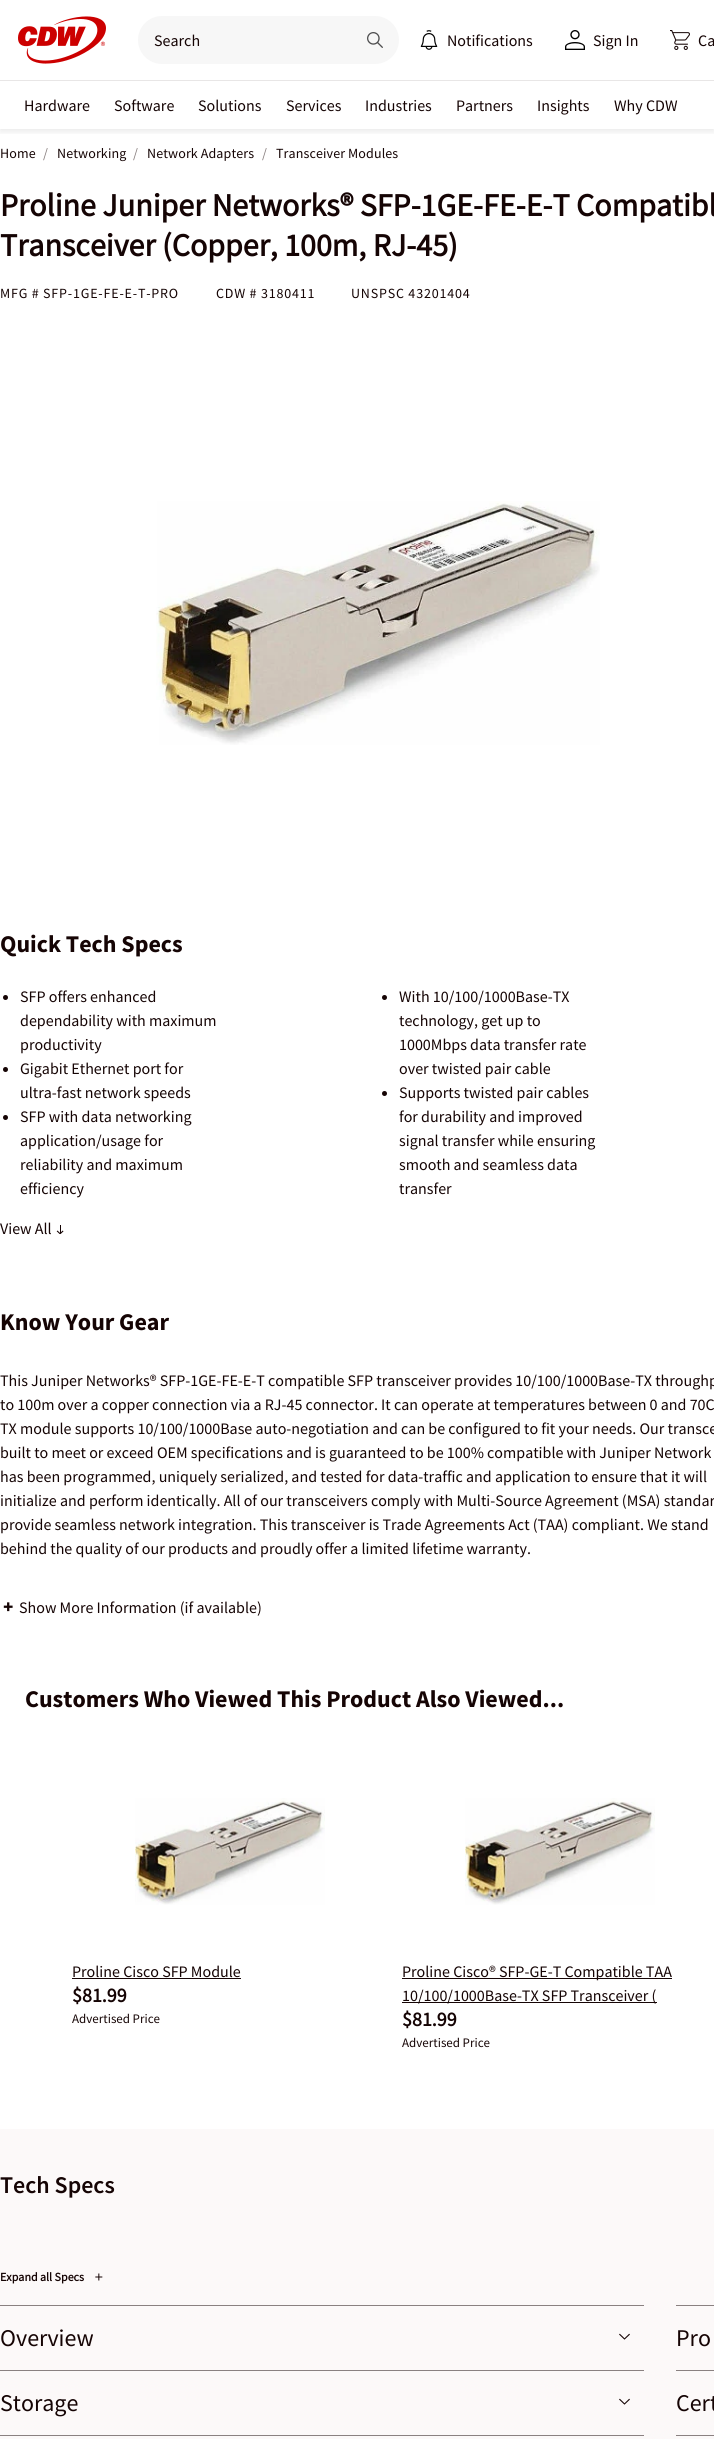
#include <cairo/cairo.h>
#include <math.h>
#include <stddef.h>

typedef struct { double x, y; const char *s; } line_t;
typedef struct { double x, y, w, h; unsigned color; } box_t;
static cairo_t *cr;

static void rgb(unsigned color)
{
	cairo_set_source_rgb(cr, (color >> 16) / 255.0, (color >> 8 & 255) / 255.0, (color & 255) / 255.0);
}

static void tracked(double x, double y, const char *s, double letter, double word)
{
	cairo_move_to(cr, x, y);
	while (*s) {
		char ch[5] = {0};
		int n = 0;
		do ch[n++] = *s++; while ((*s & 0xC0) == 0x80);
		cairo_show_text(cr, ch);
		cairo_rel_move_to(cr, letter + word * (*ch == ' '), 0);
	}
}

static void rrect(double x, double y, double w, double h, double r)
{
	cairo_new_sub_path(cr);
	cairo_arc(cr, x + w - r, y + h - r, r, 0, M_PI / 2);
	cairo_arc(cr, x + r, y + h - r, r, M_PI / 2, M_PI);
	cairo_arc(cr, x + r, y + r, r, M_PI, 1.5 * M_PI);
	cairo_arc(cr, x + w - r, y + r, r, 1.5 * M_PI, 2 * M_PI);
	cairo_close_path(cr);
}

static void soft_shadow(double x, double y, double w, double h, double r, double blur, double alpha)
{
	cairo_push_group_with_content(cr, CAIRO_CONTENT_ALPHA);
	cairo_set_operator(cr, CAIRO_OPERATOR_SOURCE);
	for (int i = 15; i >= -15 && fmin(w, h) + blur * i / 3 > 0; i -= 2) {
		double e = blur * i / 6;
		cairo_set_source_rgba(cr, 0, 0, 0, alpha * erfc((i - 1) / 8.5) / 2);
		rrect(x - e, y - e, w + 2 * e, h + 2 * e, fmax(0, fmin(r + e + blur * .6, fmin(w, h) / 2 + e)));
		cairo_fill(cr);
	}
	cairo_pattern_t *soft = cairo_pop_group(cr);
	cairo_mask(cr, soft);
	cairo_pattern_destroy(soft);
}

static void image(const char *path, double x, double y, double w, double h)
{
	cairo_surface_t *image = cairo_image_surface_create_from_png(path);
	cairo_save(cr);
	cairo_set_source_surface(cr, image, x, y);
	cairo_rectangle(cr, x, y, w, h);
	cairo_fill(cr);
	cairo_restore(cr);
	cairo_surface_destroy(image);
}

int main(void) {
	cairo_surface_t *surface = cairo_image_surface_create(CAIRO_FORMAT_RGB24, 714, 2439);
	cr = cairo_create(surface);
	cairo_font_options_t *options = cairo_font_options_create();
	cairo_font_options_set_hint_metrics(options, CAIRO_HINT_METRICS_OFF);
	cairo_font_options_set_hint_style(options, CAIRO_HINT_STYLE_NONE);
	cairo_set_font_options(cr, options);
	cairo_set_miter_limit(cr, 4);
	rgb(0xffffff);
	cairo_paint(cr);
	cairo_save(cr);
	cairo_rectangle(cr, 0, 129, 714, 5);
	cairo_clip(cr);
	rgb(0x000000);
	soft_shadow(0, 2, 714, 129, 0, 4, 0.1);
	cairo_restore(cr);
	image("img/1.png", 18, 16, 88, 48);
	rgb(0xf7f7f7);
	rrect(138, 16, 261, 48, 24);
	cairo_fill(cr);
	image("img/2.png", 367, 32, 16, 16);
	image("img/3.png", 420, 30, 18, 20);
	image("img/4.png", 565, 30, 20, 20);
	image("img/5.png", 670, 30, 20, 20);
	rgb(0xe8e6e6);
	cairo_rectangle(cr, 0, 80, 714, 1);
	cairo_fill(cr);
	image("img/6.png", 156, 501, 444, 244);
	rgb(0x150404);
	cairo_arc(cr, 5.5, 997.5, 2.5, 0, 2 * M_PI);
	cairo_fill(cr);
	cairo_arc(cr, 5.5, 1069.5, 2.5, 0, 2 * M_PI);
	cairo_fill(cr);
	cairo_arc(cr, 5.5, 1117.5, 2.5, 0, 2 * M_PI);
	cairo_fill(cr);
	cairo_arc(cr, 384.5, 997.5, 2.5, 0, 2 * M_PI);
	cairo_fill(cr);
	cairo_arc(cr, 384.5, 1093.5, 2.5, 0, 2 * M_PI);
	cairo_fill(cr);
	image("img/7.png", 56, 1225, 8, 10);
	image("img/8.png", 3, 1602, 10, 10);
	image("img/9.png", 135, 1798, 190, 107);
	cairo_rectangle(cr, 72, 1978, 169, 1);
	cairo_fill(cr);
	image("img/10.png", 465, 1798, 190, 107);
	{
		static const box_t items[] = {
			{402, 1978, 270, 1, 0x150404},
			{402, 2002, 255, 1, 0x150404},
			{0, 2129, 714, 310, 0xfcf9f9},
		};
		for (size_t i = 0; i < sizeof items / sizeof *items; i++) {
			rgb(items[i].color);
			cairo_rectangle(cr, items[i].x, items[i].y, items[i].w, items[i].h);
			cairo_fill(cr);
		}
	}
	image("img/11.png", 95, 2273, 8, 8);
	rgb(0x8a8181);
	cairo_rectangle(cr, 0, 2305, 644, 1);
	cairo_fill(cr);
	image("img/12.png", 619, 2333, 11, 7);
	cairo_rectangle(cr, 0, 2370, 644, 1);
	cairo_fill(cr);
	image("img/12.png", 619, 2398, 11, 7);
	{
		static const box_t items[] = {
			{0, 2435, 644, 1, 0x8a8181},
			{676, 2305, 38, 1, 0x8a8181},
			{676, 2370, 38, 1, 0x8a8181},
			{676, 2435, 38, 1, 0x8a8181},
		};
		for (size_t i = 0; i < sizeof items / sizeof *items; i++) {
			rgb(items[i].color);
			cairo_rectangle(cr, items[i].x, items[i].y, items[i].w, items[i].h);
			cairo_fill(cr);
		}
	}
	cairo_select_font_face(cr, "Source Sans Pro", CAIRO_FONT_SLANT_NORMAL, CAIRO_FONT_WEIGHT_NORMAL);
	cairo_set_font_size(cr, 16);
	rgb(0x150404);
	{
		static const line_t items[] = {
			{154, 46, "Search"},
			{447, 46, "Notifications"},
			{593, 46, "Sign In"},
			{698, 46, "Ca"},
			{24, 111, "Hardware"},
			{114, 111, "Software"},
			{198, 111, "Solutions"},
			{286, 111, "Services"},
			{365, 111, "Industries"},
			{456, 111, "Partners"},
			{537, 111, "Insights"},
			{614, 111, "Why CDW"},
		};
		for (size_t i = 0; i < sizeof items / sizeof *items; i++) {
			cairo_move_to(cr, items[i].x, items[i].y);
			cairo_show_text(cr, items[i].s);
		}
	}
	cairo_set_font_size(cr, 14);
	tracked(0, 158, "Home", 0.1, 0);
	rgb(0x8a8181);
	tracked(43, 158, "/", 0.1, 0);
	rgb(0x150404);
	tracked(57, 158, "Networking", 0.1, 0);
	rgb(0x8a8181);
	tracked(133, 158, "/", 0.1, 0);
	rgb(0x150404);
	tracked(147, 158, "Network Adapters", 0.1, 0);
	rgb(0x8a8181);
	tracked(262, 158, "/", 0.1, 0);
	rgb(0x150404);
	tracked(276, 158, "Transceiver Modules", 0.1, 0);
	cairo_select_font_face(cr, "Source Sans Pro", CAIRO_FONT_SLANT_NORMAL, CAIRO_FONT_WEIGHT_BOLD);
	cairo_set_font_size(cr, 32);
	cairo_move_to(cr, 0, 216);
	cairo_show_text(cr, "Proline Juniper Networks® SFP-1GE-FE-E-T Compatibl");
	cairo_move_to(cr, 0, 256);
	cairo_show_text(cr, "Transceiver (Copper, 100m, RJ-45)");
	cairo_select_font_face(cr, "Source Sans Pro", CAIRO_FONT_SLANT_NORMAL, CAIRO_FONT_WEIGHT_NORMAL);
	cairo_set_font_size(cr, 14);
	{
		static const line_t items[] = {
			{0, 298, "MFG # SFP-1GE-FE-E-T-PRO"},
			{216, 298, "CDW # 3180411"},
			{351, 298, "UNSPSC 43201404"},
		};
		for (size_t i = 0; i < sizeof items / sizeof *items; i++) {
			tracked(items[i].x, items[i].y, items[i].s, 0.8, 0);
		}
	}
	cairo_select_font_face(cr, "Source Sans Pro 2", CAIRO_FONT_SLANT_NORMAL, CAIRO_FONT_WEIGHT_BOLD);
	cairo_set_font_size(cr, 24);
	cairo_move_to(cr, 0, 952);
	cairo_show_text(cr, "Quick Tech Specs");
	cairo_select_font_face(cr, "Source Sans Pro", CAIRO_FONT_SLANT_NORMAL, CAIRO_FONT_WEIGHT_NORMAL);
	cairo_set_font_size(cr, 16);
	{
		static const line_t items[] = {
			{20, 1002, "SFP offers enhanced"},
			{20, 1026, "dependability with maximum"},
			{20, 1050, "productivity"},
			{20, 1074, "Gigabit Ethernet port for"},
			{20, 1098, "ultra-fast network speeds"},
			{20, 1122, "SFP with data networking"},
			{20, 1146, "application/usage for"},
			{20, 1170, "reliability and maximum"},
			{20, 1194, "efficiency"},
			{399, 1002, "With 10/100/1000Base-TX"},
			{399, 1026, "technology, get up to"},
			{399, 1050, "1000Mbps data transfer rate"},
			{399, 1074, "over twisted pair cable"},
			{399, 1098, "Supports twisted pair cables"},
			{399, 1122, "for durability and improved"},
			{399, 1146, "signal transfer while ensuring"},
			{399, 1170, "smooth and seamless data"},
			{399, 1194, "transfer"},
			{0, 1234, "View All"},
		};
		for (size_t i = 0; i < sizeof items / sizeof *items; i++) {
			cairo_move_to(cr, items[i].x, items[i].y);
			cairo_show_text(cr, items[i].s);
		}
	}
	cairo_select_font_face(cr, "Source Sans Pro 2", CAIRO_FONT_SLANT_NORMAL, CAIRO_FONT_WEIGHT_BOLD);
	cairo_set_font_size(cr, 24);
	cairo_move_to(cr, 0, 1330);
	cairo_show_text(cr, "Know Your Gear");
	cairo_select_font_face(cr, "Source Sans Pro", CAIRO_FONT_SLANT_NORMAL, CAIRO_FONT_WEIGHT_NORMAL);
	cairo_set_font_size(cr, 16);
	{
		static const line_t items[] = {
			{0, 1386, "This Juniper Networks® SFP-1GE-FE-E-T compatible SFP transceiver provides 10/100/1000Base-TX throughp"},
			{0, 1410, "to 100m over a copper connection via a RJ-45 connector. It can operate at temperatures between 0 and 70C"},
			{0, 1434, "TX module supports 10/100/1000Base auto-negotiation and can be configured to fit your needs. Our transce"},
			{0, 1458, "built to meet or exceed OEM specifications and is guaranteed to be 100% compatible with Juniper Network"},
			{0, 1482, "has been programmed, uniquely serialized, and tested for data-traffic and application to ensure that it will"},
			{0, 1506, "initialize and perform identically. All of our transceivers comply with Multi-Source Agreement (MSA) standar"},
			{0, 1530, "provide seamless network integration. This transceiver is Trade Agreements Act (TAA) compliant. We stand"},
			{0, 1554, "behind the quality of our products and proudly offer a limited lifetime warranty."},
			{19, 1613, "Show More Information (if available)"},
		};
		for (size_t i = 0; i < sizeof items / sizeof *items; i++) {
			cairo_move_to(cr, items[i].x, items[i].y);
			cairo_show_text(cr, items[i].s);
		}
	}
	cairo_select_font_face(cr, "Source Sans Pro 2", CAIRO_FONT_SLANT_NORMAL, CAIRO_FONT_WEIGHT_BOLD);
	cairo_set_font_size(cr, 24);
	cairo_move_to(cr, 25, 1707);
	cairo_show_text(cr, "Customers Who Viewed This Product Also Viewed...");
	cairo_select_font_face(cr, "Source Sans Pro", CAIRO_FONT_SLANT_NORMAL, CAIRO_FONT_WEIGHT_NORMAL);
	cairo_set_font_size(cr, 16);
	cairo_move_to(cr, 72, 1977);
	cairo_show_text(cr, "Proline Cisco SFP Module");
	cairo_select_font_face(cr, "Source Sans Pro", CAIRO_FONT_SLANT_NORMAL, CAIRO_FONT_WEIGHT_BOLD);
	cairo_set_font_size(cr, 20);
	cairo_move_to(cr, 72, 2002);
	cairo_show_text(cr, "$81.99");
	cairo_select_font_face(cr, "Source Sans Pro", CAIRO_FONT_SLANT_NORMAL, CAIRO_FONT_WEIGHT_NORMAL);
	cairo_set_font_size(cr, 13);
	cairo_move_to(cr, 72, 2023);
	cairo_show_text(cr, "Advertised Price");
	cairo_set_font_size(cr, 16);
	cairo_move_to(cr, 402, 1977);
	cairo_show_text(cr, "Proline Cisco® SFP-GE-T Compatible TAA");
	cairo_move_to(cr, 402, 2001);
	cairo_show_text(cr, "10/100/1000Base-TX SFP Transceiver (");
	cairo_select_font_face(cr, "Source Sans Pro", CAIRO_FONT_SLANT_NORMAL, CAIRO_FONT_WEIGHT_BOLD);
	cairo_set_font_size(cr, 20);
	cairo_move_to(cr, 402, 2026);
	cairo_show_text(cr, "$81.99");
	cairo_select_font_face(cr, "Source Sans Pro", CAIRO_FONT_SLANT_NORMAL, CAIRO_FONT_WEIGHT_NORMAL);
	cairo_set_font_size(cr, 13);
	cairo_move_to(cr, 402, 2047);
	cairo_show_text(cr, "Advertised Price");
	cairo_select_font_face(cr, "Source Sans Pro SemiBold", CAIRO_FONT_SLANT_NORMAL, CAIRO_FONT_WEIGHT_NORMAL);
	cairo_set_font_size(cr, 24);
	cairo_move_to(cr, 0, 2193);
	cairo_show_text(cr, "Tech Specs");
	cairo_select_font_face(cr, "Source Sans Pro", CAIRO_FONT_SLANT_NORMAL, CAIRO_FONT_WEIGHT_BOLD);
	cairo_set_font_size(cr, 12);
	cairo_move_to(cr, 0, 2281);
	cairo_show_text(cr, "Expand all Specs");
	cairo_select_font_face(cr, "Source Sans Pro", CAIRO_FONT_SLANT_NORMAL, CAIRO_FONT_WEIGHT_NORMAL);
	cairo_set_font_size(cr, 24);
	{
		static const line_t items[] = {
			{0, 2346, "Overview"},
			{0, 2411, "Storage"},
			{676, 2346, "Pro"},
			{676, 2411, "Cert"},
		};
		for (size_t i = 0; i < sizeof items / sizeof *items; i++) {
			cairo_move_to(cr, items[i].x, items[i].y);
			cairo_show_text(cr, items[i].s);
		}
	}
	cairo_surface_write_to_png(surface, "page.png");
	cairo_font_options_destroy(options);
	cairo_destroy(cr);
	cairo_surface_destroy(surface);
	return 0;
}
